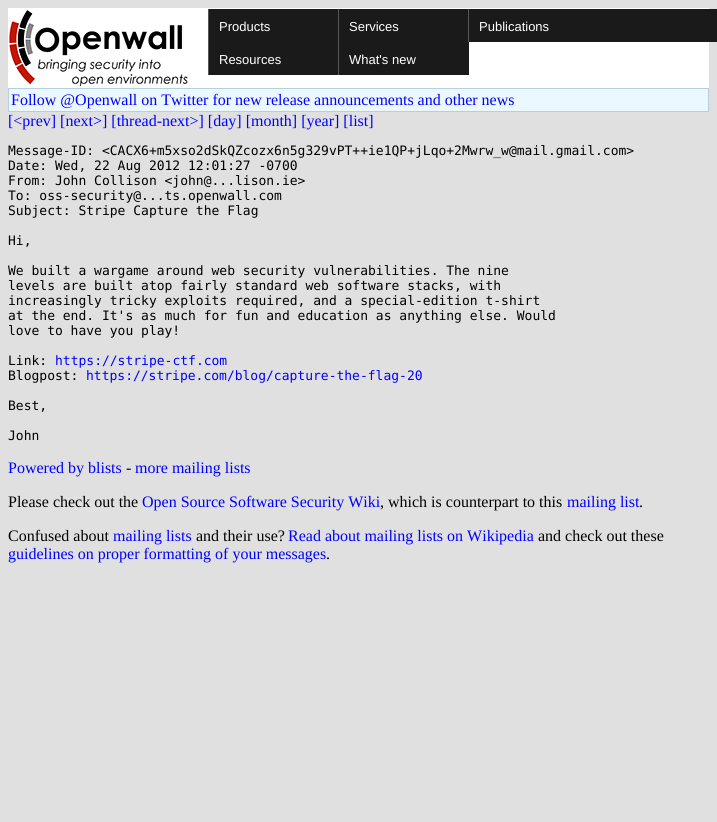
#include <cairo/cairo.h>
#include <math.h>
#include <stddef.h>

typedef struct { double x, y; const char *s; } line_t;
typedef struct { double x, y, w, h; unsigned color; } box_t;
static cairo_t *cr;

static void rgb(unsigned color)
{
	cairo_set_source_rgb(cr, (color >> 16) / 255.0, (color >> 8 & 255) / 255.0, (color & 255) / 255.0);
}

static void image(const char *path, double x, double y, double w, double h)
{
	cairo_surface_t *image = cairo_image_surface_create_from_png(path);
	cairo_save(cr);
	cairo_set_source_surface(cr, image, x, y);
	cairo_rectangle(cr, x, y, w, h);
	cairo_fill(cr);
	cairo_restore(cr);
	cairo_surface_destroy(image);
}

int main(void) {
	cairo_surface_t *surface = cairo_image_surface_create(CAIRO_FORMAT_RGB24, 717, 822);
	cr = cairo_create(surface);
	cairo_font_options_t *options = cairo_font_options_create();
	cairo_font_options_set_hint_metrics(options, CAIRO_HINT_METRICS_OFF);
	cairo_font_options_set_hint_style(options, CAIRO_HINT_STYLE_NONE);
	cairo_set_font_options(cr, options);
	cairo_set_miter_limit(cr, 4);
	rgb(0xe0e0e0);
	cairo_paint(cr);
	rgb(0xffffff);
	cairo_rectangle(cr, 8, 8, 701, 80);
	cairo_fill(cr);
	image("img/1.png", 9, 10, 179, 77);
	{
		static const box_t items[] = {
			{209, 9, 129, 66, 0x1a1a1a},
			{208, 9, 1, 66, 0x555555},
			{339, 9, 129, 33, 0x1a1a1a},
			{338, 9, 1, 66, 0x555555},
			{469, 9, 248, 33, 0x1a1a1a},
			{468, 9, 1, 33, 0x555555},
			{339, 42, 130, 33, 0x1a1a1a},
			{8, 88, 701, 24, 0xb4d0dc},
			{9, 89, 699, 22, 0xecf8ff},
		};
		for (size_t i = 0; i < sizeof items / sizeof *items; i++) {
			rgb(items[i].color);
			cairo_rectangle(cr, items[i].x, items[i].y, items[i].w, items[i].h);
			cairo_fill(cr);
		}
	}
	cairo_select_font_face(cr, "Liberation Sans", CAIRO_FONT_SLANT_NORMAL, CAIRO_FONT_WEIGHT_NORMAL);
	cairo_set_font_size(cr, 13);
	rgb(0xffffff);
	{
		static const line_t items[] = {
			{219, 31, "Products"},
			{349, 31, "Services"},
			{479, 31, "Publications"},
			{219, 64, "Resources"},
			{349, 64, "What's new"},
		};
		for (size_t i = 0; i < sizeof items / sizeof *items; i++) {
			cairo_move_to(cr, items[i].x, items[i].y);
			cairo_show_text(cr, items[i].s);
		}
	}
	cairo_select_font_face(cr, "Liberation Serif", CAIRO_FONT_SLANT_NORMAL, CAIRO_FONT_WEIGHT_NORMAL);
	cairo_set_font_size(cr, 16);
	rgb(0x0000ff);
	cairo_move_to(cr, 11, 105);
	cairo_show_text(cr, "Follow @Openwall on Twitter for new release announcements and other news");
	cairo_move_to(cr, 8, 126);
	cairo_show_text(cr, "[<prev] [next>] [thread-next>] [day] [month] [year] [list]");
	cairo_select_font_face(cr, "DejaVu Sans Mono", CAIRO_FONT_SLANT_NORMAL, CAIRO_FONT_WEIGHT_NORMAL);
	cairo_set_font_size(cr, 13);
	rgb(0x000000);
	{
		static const line_t items[] = {
			{8, 155, "Message-ID: <CACX6+m5xso2dSkQZcozx6n5g329vPT++ie1QP+jLqo+2Mwrw_w@mail.gmail.com>"},
			{8, 170, "Date: Wed, 22 Aug 2012 12:01:27 -0700"},
			{8, 185, "From: John Collison <john@...lison.ie>"},
			{8, 200, "To: oss-security@...ts.openwall.com"},
			{8, 215, "Subject: Stripe Capture the Flag"},
			{8, 245, "Hi,"},
			{8, 275, "We built a wargame around web security vulnerabilities. The nine"},
			{8, 290, "levels are built atop fairly standard web software stacks, with"},
			{8, 305, "increasingly tricky exploits required, and a special-edition t-shirt"},
			{8, 320, "at the end. It's as much for fun and education as anything else. Would"},
			{8, 335, "love to have you play!"},
			{8, 365, "Link:"},
		};
		for (size_t i = 0; i < sizeof items / sizeof *items; i++) {
			cairo_move_to(cr, items[i].x, items[i].y);
			cairo_show_text(cr, items[i].s);
		}
	}
	rgb(0x0000ff);
	cairo_move_to(cr, 55, 365);
	cairo_show_text(cr, "https://stripe-ctf.com");
	rgb(0x000000);
	cairo_move_to(cr, 8, 380);
	cairo_show_text(cr, "Blogpost:");
	rgb(0x0000ff);
	cairo_move_to(cr, 86, 380);
	cairo_show_text(cr, "https://stripe.com/blog/capture-the-flag-20");
	rgb(0x000000);
	cairo_move_to(cr, 8, 410);
	cairo_show_text(cr, "Best,");
	cairo_move_to(cr, 8, 440);
	cairo_show_text(cr, "John");
	cairo_select_font_face(cr, "Liberation Serif", CAIRO_FONT_SLANT_NORMAL, CAIRO_FONT_WEIGHT_NORMAL);
	cairo_set_font_size(cr, 16);
	rgb(0x0000ff);
	cairo_move_to(cr, 8, 473);
	cairo_show_text(cr, "Powered by blists");
	rgb(0x000000);
	cairo_move_to(cr, 126, 473);
	cairo_show_text(cr, "-");
	rgb(0x0000ff);
	cairo_move_to(cr, 135, 473);
	cairo_show_text(cr, "more mailing lists");
	rgb(0x000000);
	cairo_move_to(cr, 8, 507);
	cairo_show_text(cr, "Please check out the");
	rgb(0x0000ff);
	cairo_move_to(cr, 142, 507);
	cairo_show_text(cr, "Open Source Software Security Wiki");
	rgb(0x000000);
	cairo_move_to(cr, 380, 507);
	cairo_show_text(cr, ", which is counterpart to this");
	rgb(0x0000ff);
	cairo_move_to(cr, 567, 507);
	cairo_show_text(cr, "mailing list");
	rgb(0x000000);
	cairo_move_to(cr, 639, 507);
	cairo_show_text(cr, ".");
	cairo_move_to(cr, 8, 541);
	cairo_show_text(cr, "Confused about");
	rgb(0x0000ff);
	cairo_move_to(cr, 113, 541);
	cairo_show_text(cr, "mailing lists");
	rgb(0x000000);
	cairo_move_to(cr, 196, 541);
	cairo_show_text(cr, "and their use?");
	rgb(0x0000ff);
	cairo_move_to(cr, 288, 541);
	cairo_show_text(cr, "Read about mailing lists on Wikipedia");
	rgb(0x000000);
	cairo_move_to(cr, 538, 541);
	cairo_show_text(cr, "and check out these");
	rgb(0x0000ff);
	cairo_move_to(cr, 8, 559);
	cairo_show_text(cr, "guidelines on proper formatting of your messages");
	rgb(0x000000);
	cairo_move_to(cr, 326, 559);
	cairo_show_text(cr, ".");
	cairo_surface_write_to_png(surface, "page.png");
	cairo_font_options_destroy(options);
	cairo_destroy(cr);
	cairo_surface_destroy(surface);
	return 0;
}
